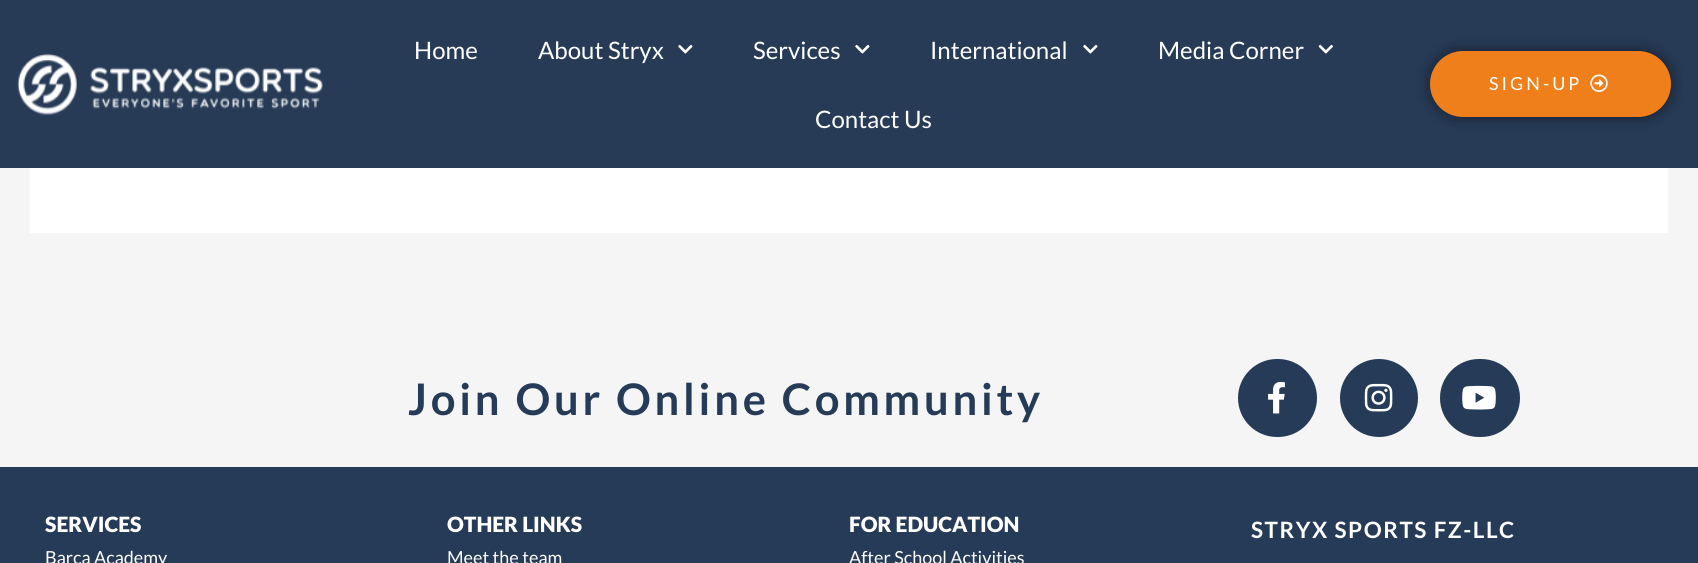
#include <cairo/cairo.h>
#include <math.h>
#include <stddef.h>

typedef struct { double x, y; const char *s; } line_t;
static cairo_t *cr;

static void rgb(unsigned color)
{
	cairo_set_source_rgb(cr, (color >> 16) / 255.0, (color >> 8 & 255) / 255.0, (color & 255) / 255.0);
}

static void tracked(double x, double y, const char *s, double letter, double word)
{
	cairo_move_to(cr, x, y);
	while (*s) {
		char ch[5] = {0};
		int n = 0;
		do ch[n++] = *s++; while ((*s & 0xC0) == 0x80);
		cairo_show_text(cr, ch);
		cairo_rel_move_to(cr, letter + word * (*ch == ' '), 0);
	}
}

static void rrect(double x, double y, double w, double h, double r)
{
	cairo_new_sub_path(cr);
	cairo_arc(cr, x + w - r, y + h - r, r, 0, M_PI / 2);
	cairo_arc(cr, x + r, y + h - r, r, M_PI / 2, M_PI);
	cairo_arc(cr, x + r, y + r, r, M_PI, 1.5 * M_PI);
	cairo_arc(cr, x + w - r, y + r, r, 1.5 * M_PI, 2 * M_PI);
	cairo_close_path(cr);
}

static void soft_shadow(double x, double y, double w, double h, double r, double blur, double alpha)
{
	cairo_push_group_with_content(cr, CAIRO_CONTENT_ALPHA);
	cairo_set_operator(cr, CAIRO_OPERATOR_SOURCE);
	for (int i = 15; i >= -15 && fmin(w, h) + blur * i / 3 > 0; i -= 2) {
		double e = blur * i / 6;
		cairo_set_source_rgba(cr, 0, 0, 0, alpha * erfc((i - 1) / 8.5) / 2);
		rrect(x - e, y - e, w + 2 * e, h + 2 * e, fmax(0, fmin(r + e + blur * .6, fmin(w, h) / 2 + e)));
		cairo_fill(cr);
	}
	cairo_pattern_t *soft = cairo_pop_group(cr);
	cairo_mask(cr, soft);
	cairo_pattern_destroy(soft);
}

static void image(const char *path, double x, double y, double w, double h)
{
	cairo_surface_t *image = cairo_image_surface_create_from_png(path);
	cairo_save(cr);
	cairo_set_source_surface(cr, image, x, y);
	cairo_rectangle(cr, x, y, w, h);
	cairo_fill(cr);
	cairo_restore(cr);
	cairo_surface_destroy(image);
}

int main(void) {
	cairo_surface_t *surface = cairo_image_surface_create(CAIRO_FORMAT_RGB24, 1698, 563);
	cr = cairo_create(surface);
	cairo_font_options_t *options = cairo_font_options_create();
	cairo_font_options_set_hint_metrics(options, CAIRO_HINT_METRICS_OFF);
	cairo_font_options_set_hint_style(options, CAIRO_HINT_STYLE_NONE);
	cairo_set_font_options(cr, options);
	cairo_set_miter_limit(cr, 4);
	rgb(0xf5f5f5);
	cairo_paint(cr);
	rgb(0x273b57);
	cairo_rectangle(cr, 0, 0, 1698, 168);
	cairo_fill(cr);
	image("img/1.png", 17, 53, 306, 62);
	image("img/2.png", 678, 44, 15, 10);
	image("img/2.png", 855, 44, 15, 10);
	image("img/2.png", 1083, 44, 15, 10);
	image("img/3.png", 1318, 44, 15, 10);
	rgb(0x000000);
	soft_shadow(1430, 51, 241, 66, 33, 7.5, 0.5);
	rgb(0xef7f1a);
	rrect(1430, 51, 241, 66, 33);
	cairo_fill(cr);
	image("img/4.png", 1590, 74, 18, 18);
	rgb(0xffffff);
	cairo_rectangle(cr, 30, 168, 1638, 65);
	cairo_fill(cr);
	rgb(0x263b57);
	rrect(1238, 359, 79, 78, 39);
	cairo_fill(cr);
	image("img/5.png", 1268, 381, 17, 33);
	cairo_arc(cr, 1379, 398, 39, 0, 2 * M_PI);
	cairo_fill(cr);
	image("img/6.png", 1364, 383, 29, 29);
	rrect(1440, 359, 80, 78, 39);
	cairo_fill(cr);
	image("img/7.png", 1462, 385, 34, 25);
	cairo_rectangle(cr, 0, 467, 1698, 96);
	cairo_fill(cr);
	cairo_select_font_face(cr, "Lato", CAIRO_FONT_SLANT_NORMAL, CAIRO_FONT_WEIGHT_NORMAL);
	cairo_set_font_size(cr, 24);
	rgb(0xffffff);
	{
		static const line_t items[] = {
			{414, 59, "Home"},
			{538, 59, "About Stryx"},
			{753, 59, "Services"},
			{930, 59, "International"},
			{1158, 59, "Media Corner"},
			{815, 128, "Contact Us"},
		};
		for (size_t i = 0; i < sizeof items / sizeof *items; i++) {
			cairo_move_to(cr, items[i].x, items[i].y);
			cairo_show_text(cr, items[i].s);
		}
	}
	cairo_set_font_size(cr, 18);
	tracked(1489, 90, "SIGN-UP", 3, 0);
	cairo_select_font_face(cr, "Lato", CAIRO_FONT_SLANT_NORMAL, CAIRO_FONT_WEIGHT_BOLD);
	cairo_set_font_size(cr, 43.5);
	rgb(0x263b57);
	tracked(408, 415, "Join Our Online Community", 3.75, 0);
	cairo_select_font_face(cr, "Lato Black", CAIRO_FONT_SLANT_NORMAL, CAIRO_FONT_WEIGHT_NORMAL);
	cairo_set_font_size(cr, 21);
	rgb(0xffffff);
	cairo_move_to(cr, 45, 532);
	cairo_show_text(cr, "SERVICES");
	cairo_select_font_face(cr, "Lato", CAIRO_FONT_SLANT_NORMAL, CAIRO_FONT_WEIGHT_NORMAL);
	cairo_set_font_size(cr, 18);
	cairo_move_to(cr, 45, 564);
	cairo_show_text(cr, "Barça Academy");
	cairo_select_font_face(cr, "Lato Black", CAIRO_FONT_SLANT_NORMAL, CAIRO_FONT_WEIGHT_NORMAL);
	cairo_set_font_size(cr, 21);
	cairo_move_to(cr, 447, 532);
	cairo_show_text(cr, "OTHER LINKS");
	cairo_select_font_face(cr, "Lato", CAIRO_FONT_SLANT_NORMAL, CAIRO_FONT_WEIGHT_NORMAL);
	cairo_set_font_size(cr, 18);
	cairo_move_to(cr, 447, 564);
	cairo_show_text(cr, "Meet the team");
	cairo_select_font_face(cr, "Lato Black", CAIRO_FONT_SLANT_NORMAL, CAIRO_FONT_WEIGHT_NORMAL);
	cairo_set_font_size(cr, 21);
	cairo_move_to(cr, 849, 532);
	cairo_show_text(cr, "FOR EDUCATION");
	cairo_select_font_face(cr, "Lato", CAIRO_FONT_SLANT_NORMAL, CAIRO_FONT_WEIGHT_NORMAL);
	cairo_set_font_size(cr, 18);
	cairo_move_to(cr, 849, 564);
	cairo_show_text(cr, "After School Activities");
	cairo_select_font_face(cr, "Lato", CAIRO_FONT_SLANT_NORMAL, CAIRO_FONT_WEIGHT_BOLD);
	cairo_set_font_size(cr, 22.5);
	tracked(1251, 538, "STRYX SPORTS FZ-LLC", 1.5, 0);
	cairo_surface_write_to_png(surface, "page.png");
	cairo_font_options_destroy(options);
	cairo_destroy(cr);
	cairo_surface_destroy(surface);
	return 0;
}
